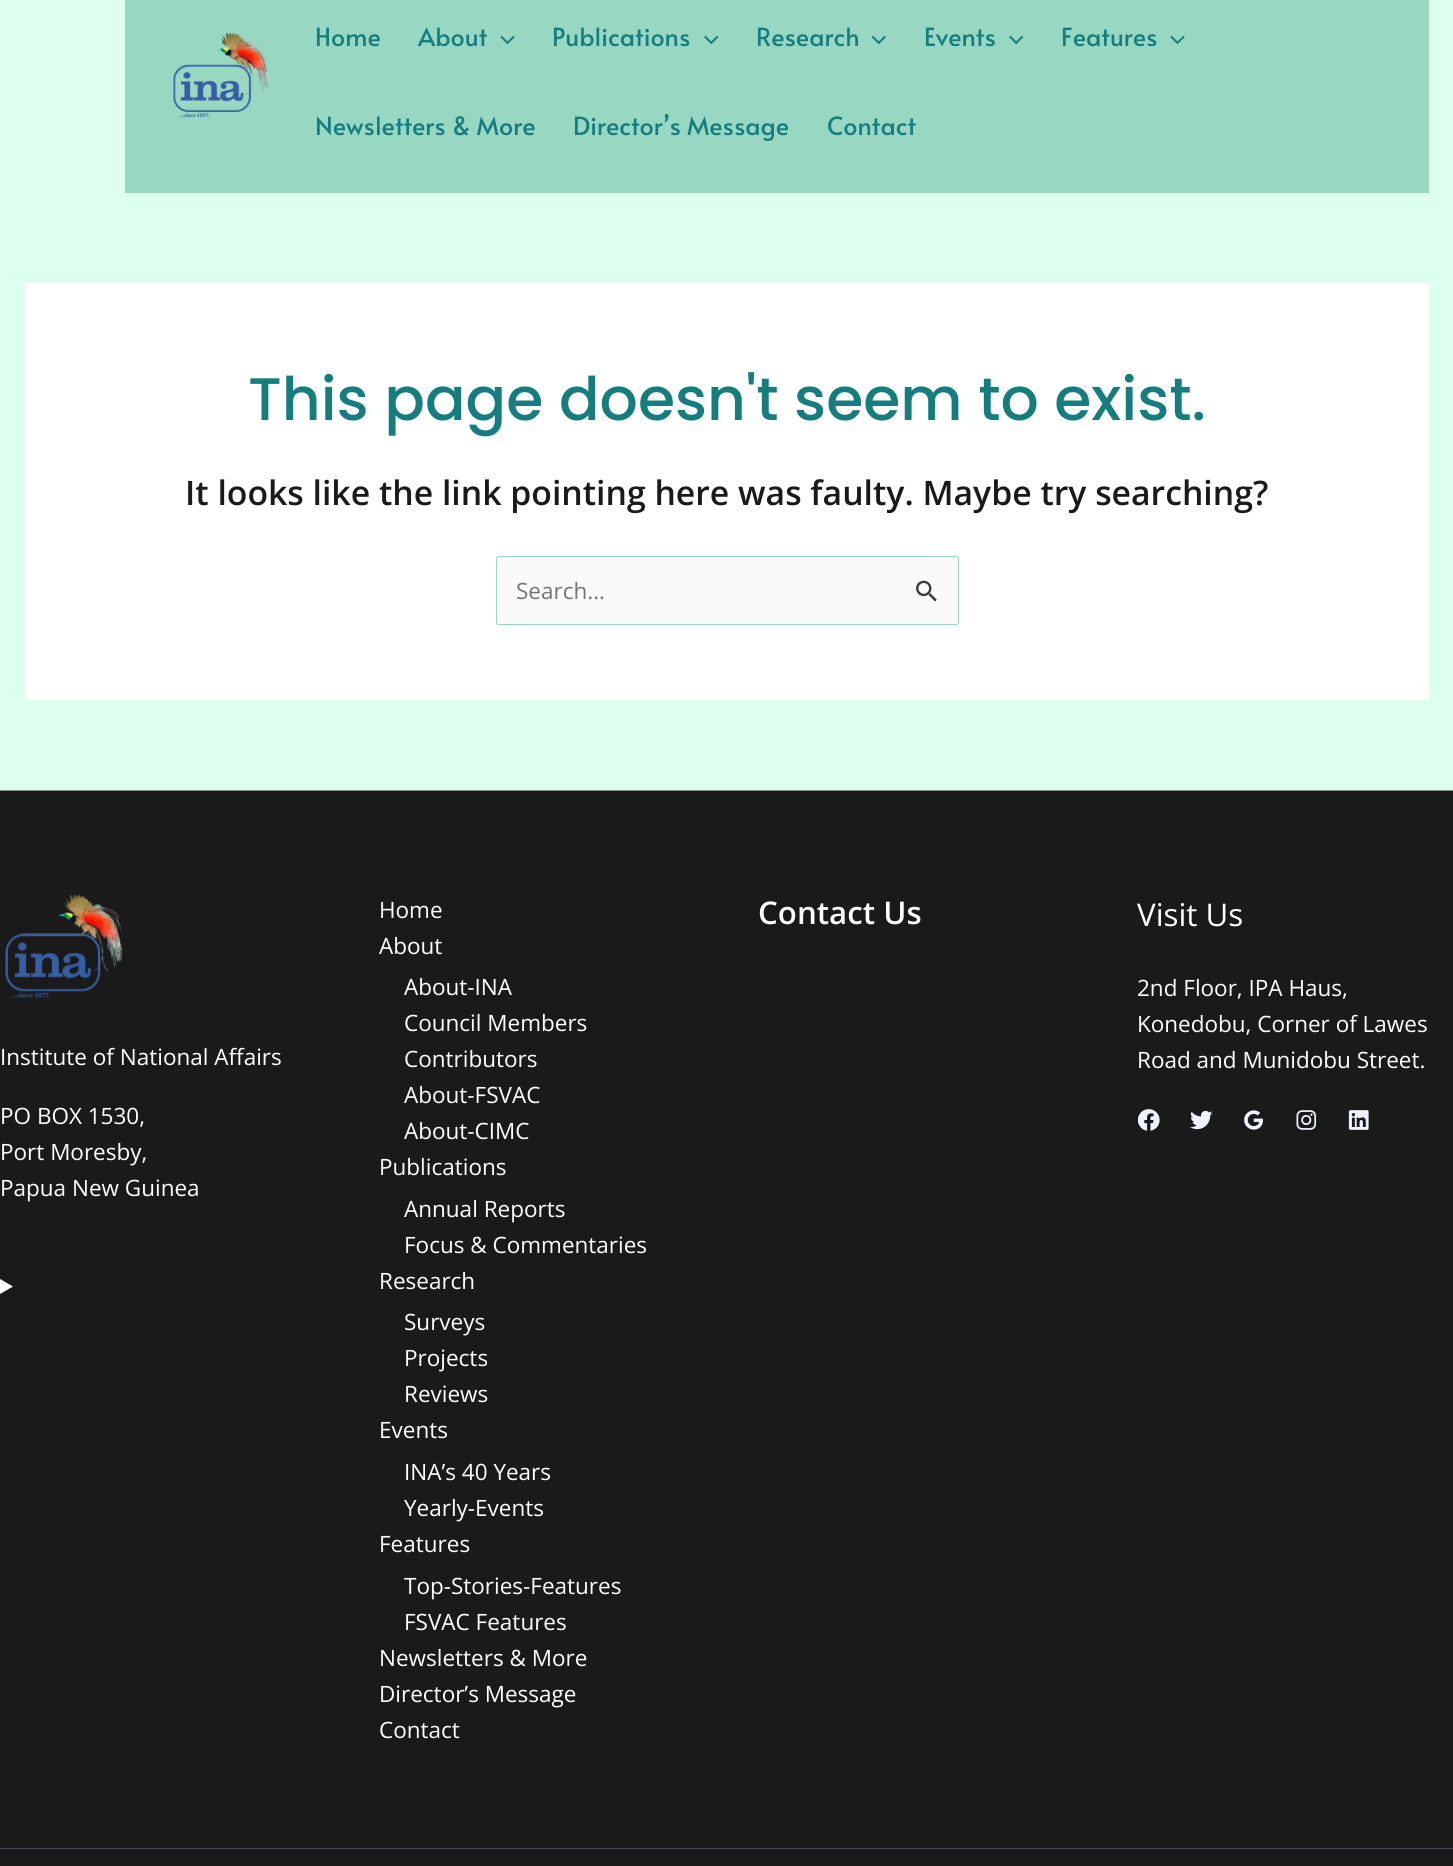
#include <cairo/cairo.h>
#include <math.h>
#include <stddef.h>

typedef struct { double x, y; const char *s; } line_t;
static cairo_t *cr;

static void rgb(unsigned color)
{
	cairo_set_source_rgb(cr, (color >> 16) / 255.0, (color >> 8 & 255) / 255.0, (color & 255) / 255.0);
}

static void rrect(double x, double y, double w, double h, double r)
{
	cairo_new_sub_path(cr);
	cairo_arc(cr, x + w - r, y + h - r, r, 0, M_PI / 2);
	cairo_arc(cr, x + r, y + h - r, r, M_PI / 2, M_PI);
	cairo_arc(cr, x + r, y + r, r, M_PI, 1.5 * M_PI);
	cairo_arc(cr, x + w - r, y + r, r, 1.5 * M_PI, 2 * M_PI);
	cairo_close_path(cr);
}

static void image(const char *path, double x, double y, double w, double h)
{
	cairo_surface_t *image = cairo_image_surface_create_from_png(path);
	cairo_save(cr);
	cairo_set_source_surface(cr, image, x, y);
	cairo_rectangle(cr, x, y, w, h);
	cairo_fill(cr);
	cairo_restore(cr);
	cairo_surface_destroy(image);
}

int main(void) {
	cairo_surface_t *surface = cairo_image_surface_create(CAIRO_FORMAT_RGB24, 1453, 1866);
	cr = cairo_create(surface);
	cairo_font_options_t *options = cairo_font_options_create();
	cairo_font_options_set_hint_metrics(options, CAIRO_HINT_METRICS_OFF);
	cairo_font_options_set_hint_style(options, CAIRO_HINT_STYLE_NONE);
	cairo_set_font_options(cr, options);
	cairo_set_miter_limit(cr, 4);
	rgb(0xddffee);
	cairo_paint(cr);
	rgb(0x98d7c2);
	cairo_rectangle(cr, 125, 0, 1304, 193);
	cairo_fill(cr);
	image("img/1.png", 173, 32, 96, 86);
	image("img/2.png", 500, 35, 15, 10);
	image("img/3.png", 704, 35, 15, 10);
	image("img/4.png", 871, 35, 15, 10);
	image("img/3.png", 1009, 35, 15, 10);
	image("img/2.png", 1170, 35, 15, 10);
	rgb(0xffffff);
	cairo_rectangle(cr, 25, 283, 1404, 417);
	cairo_fill(cr);
	rgb(0xfafafa);
	rrect(496.5, 556.5, 462, 68, 2);
	cairo_fill_preserve(cr);
	rgb(0x98d7c2);
	cairo_set_line_width(cr, 1);
	cairo_stroke(cr);
	image("img/5.png", 916, 580, 21, 22);
	rgb(0x1a1a1a);
	cairo_rectangle(cr, 0, 791, 1453, 1057);
	cairo_fill(cr);
	rgb(0x8e8e8e);
	cairo_rectangle(cr, 0, 790, 1453, 1);
	cairo_fill(cr);
	image("img/6.png", 1138, 1109, 22, 22);
	image("img/7.png", 1190, 1110, 23, 20);
	image("img/8.png", 1244, 1110, 19, 20);
	image("img/9.png", 1296, 1110, 21, 20);
	image("img/10.png", 1348, 1110, 21, 20);
	image("img/11.png", 5, 894, 117, 105);
	rgb(0xffffff);
	cairo_new_path(cr);
	cairo_move_to(cr, 0, 1279);
	cairo_line_to(cr, 13, 1286.5);
	cairo_line_to(cr, 0, 1294);
	cairo_close_path(cr);
	cairo_fill(cr);
	rgb(0x1a1a1a);
	cairo_rectangle(cr, 0, 1849, 1453, 17);
	cairo_fill(cr);
	rgb(0x424564);
	cairo_rectangle(cr, 0, 1848, 1453, 1);
	cairo_fill(cr);
	cairo_select_font_face(cr, "Alata", CAIRO_FONT_SLANT_NORMAL, CAIRO_FONT_WEIGHT_NORMAL);
	cairo_set_font_size(cr, 25);
	rgb(0x167d7f);
	{
		static const line_t items[] = {
			{315, 46, "Home"},
			{418, 46, "About"},
			{552, 46, "Publications"},
			{756, 46, "Research"},
			{924, 46, "Events"},
			{1061, 46, "Features"},
			{315, 135, "Newsletters & More"},
			{573, 135, "Director’s Message"},
			{827, 135, "Contact"},
		};
		for (size_t i = 0; i < sizeof items / sizeof *items; i++) {
			cairo_move_to(cr, items[i].x, items[i].y);
			cairo_show_text(cr, items[i].s);
		}
	}
	cairo_select_font_face(cr, "Poppins Medium", CAIRO_FONT_SLANT_NORMAL, CAIRO_FONT_WEIGHT_NORMAL);
	cairo_set_font_size(cr, 60);
	cairo_move_to(cr, 248, 420);
	cairo_show_text(cr, "This page doesn't seem to exist.");
	cairo_select_font_face(cr, "Open Sans SemiBold", CAIRO_FONT_SLANT_NORMAL, CAIRO_FONT_WEIGHT_NORMAL);
	cairo_set_font_size(cr, 33.75);
	rgb(0x1a1a1a);
	cairo_move_to(cr, 185, 505);
	cairo_show_text(cr, "It looks like the link pointing here was faulty. Maybe try searching?");
	cairo_select_font_face(cr, "Open Sans", CAIRO_FONT_SLANT_NORMAL, CAIRO_FONT_WEIGHT_NORMAL);
	cairo_set_font_size(cr, 22.5);
	rgb(0x757575);
	cairo_move_to(cr, 516, 599);
	cairo_show_text(cr, "Search...");
	rgb(0xffffff);
	{
		static const line_t items[] = {
			{379, 918, "Home"},
			{379, 954, "About"},
			{404, 995, "About-INA"},
			{404, 1031, "Council Members"},
			{404, 1067, "Contributors"},
			{404, 1103, "About-FSVAC"},
			{404, 1139, "About-CIMC"},
			{379, 1175, "Publications"},
			{404, 1217, "Annual Reports"},
			{404, 1253, "Focus & Commentaries"},
			{379, 1289, "Research"},
			{404, 1330, "Surveys"},
			{404, 1366, "Projects"},
			{404, 1402, "Reviews"},
			{379, 1438, "Events"},
			{404, 1480, "INA’s 40 Years"},
			{404, 1516, "Yearly-Events"},
			{379, 1552, "Features"},
			{404, 1594, "Top-Stories-Features"},
			{404, 1630, "FSVAC Features"},
			{379, 1666, "Newsletters & More"},
			{379, 1702, "Director’s Message"},
			{379, 1738, "Contact"},
		};
		for (size_t i = 0; i < sizeof items / sizeof *items; i++) {
			cairo_move_to(cr, items[i].x, items[i].y);
			cairo_show_text(cr, items[i].s);
		}
	}
	cairo_select_font_face(cr, "Open Sans SemiBold", CAIRO_FONT_SLANT_NORMAL, CAIRO_FONT_WEIGHT_NORMAL);
	cairo_set_font_size(cr, 31.25);
	cairo_move_to(cr, 758, 924);
	cairo_show_text(cr, "Contact Us");
	cairo_select_font_face(cr, "Open Sans", CAIRO_FONT_SLANT_NORMAL, CAIRO_FONT_WEIGHT_NORMAL);
	cairo_move_to(cr, 1137, 926);
	cairo_show_text(cr, "Visit Us");
	cairo_set_font_size(cr, 22.5);
	{
		static const line_t items[] = {
			{1137, 996, "2nd Floor, IPA Haus,"},
			{1137, 1032, "Konedobu, Corner of Lawes"},
			{1137, 1068, "Road and Munidobu Street."},
			{0, 1065, "Institute of National Affairs"},
			{0, 1124, "PO BOX 1530,"},
			{0, 1160, "Port Moresby,"},
			{0, 1196, "Papua New Guinea"},
		};
		for (size_t i = 0; i < sizeof items / sizeof *items; i++) {
			cairo_move_to(cr, items[i].x, items[i].y);
			cairo_show_text(cr, items[i].s);
		}
	}
	cairo_surface_write_to_png(surface, "page.png");
	cairo_font_options_destroy(options);
	cairo_destroy(cr);
	cairo_surface_destroy(surface);
	return 0;
}
